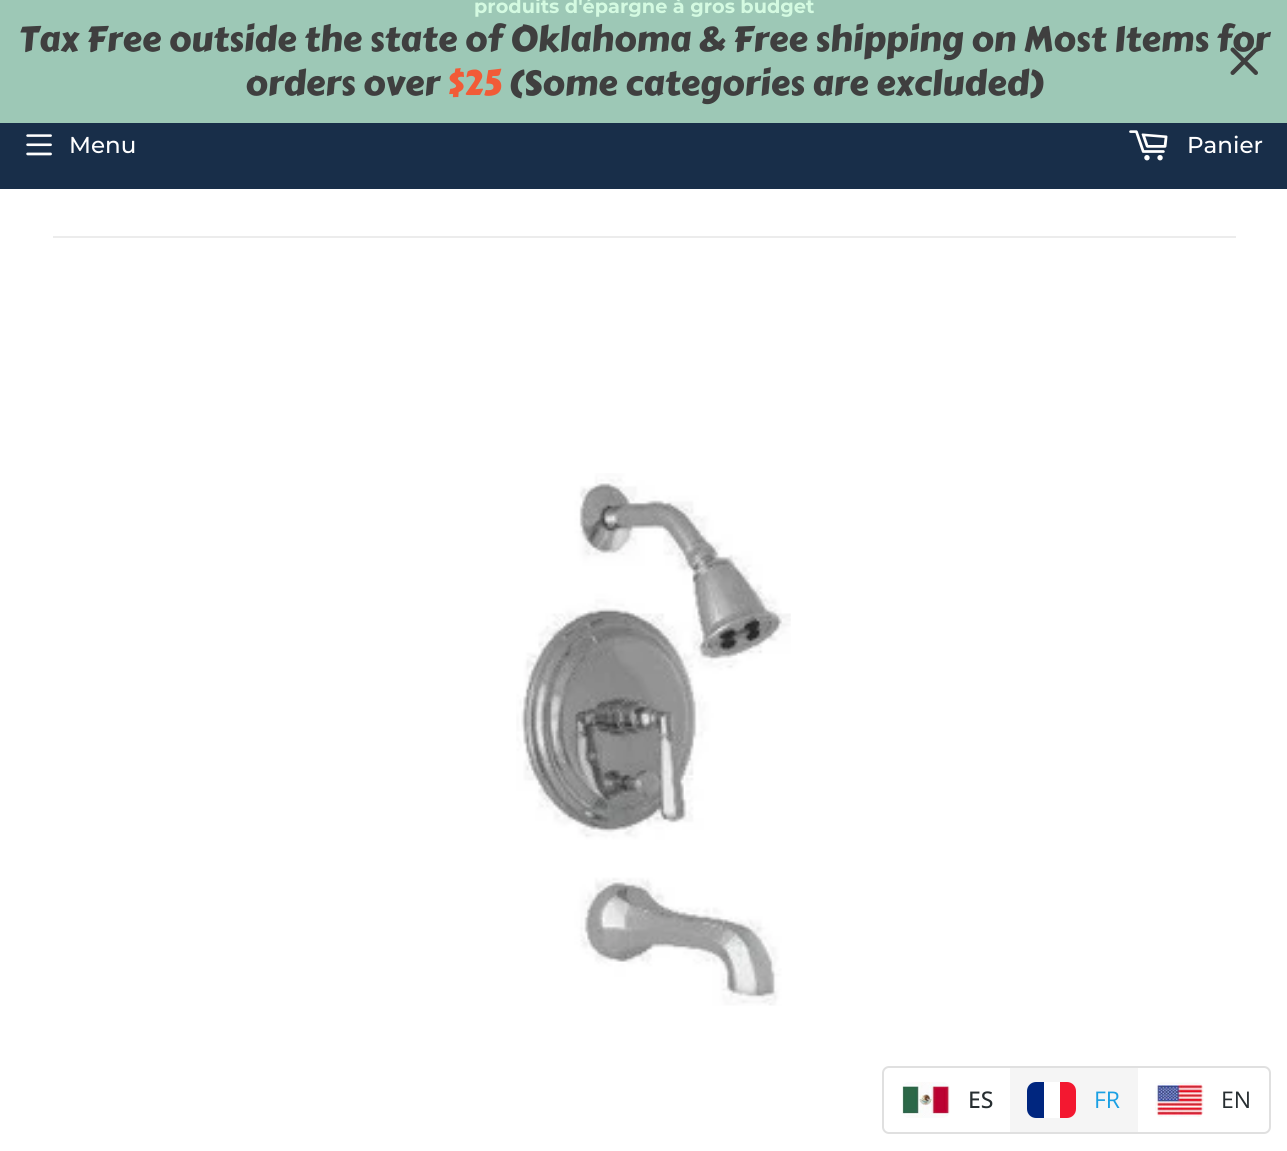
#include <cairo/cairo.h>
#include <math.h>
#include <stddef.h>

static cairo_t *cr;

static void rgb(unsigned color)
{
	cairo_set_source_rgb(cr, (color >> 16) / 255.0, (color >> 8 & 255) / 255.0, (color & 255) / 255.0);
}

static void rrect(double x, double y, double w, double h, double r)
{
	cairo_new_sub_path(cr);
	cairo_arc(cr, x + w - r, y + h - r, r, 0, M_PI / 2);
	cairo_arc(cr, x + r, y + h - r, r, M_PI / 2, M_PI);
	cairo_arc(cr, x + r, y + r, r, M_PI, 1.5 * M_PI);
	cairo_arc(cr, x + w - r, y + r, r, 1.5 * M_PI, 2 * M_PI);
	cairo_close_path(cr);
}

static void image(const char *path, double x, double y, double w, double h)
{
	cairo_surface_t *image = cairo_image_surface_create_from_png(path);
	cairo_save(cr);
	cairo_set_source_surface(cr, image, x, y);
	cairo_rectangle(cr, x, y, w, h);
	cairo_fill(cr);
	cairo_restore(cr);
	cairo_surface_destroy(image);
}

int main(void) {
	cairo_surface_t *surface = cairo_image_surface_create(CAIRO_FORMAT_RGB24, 1287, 1151);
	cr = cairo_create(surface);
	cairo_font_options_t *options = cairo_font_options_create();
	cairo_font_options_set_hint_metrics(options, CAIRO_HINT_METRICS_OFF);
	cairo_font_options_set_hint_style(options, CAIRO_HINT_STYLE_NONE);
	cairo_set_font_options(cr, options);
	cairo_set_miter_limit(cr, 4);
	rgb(0xffffff);
	cairo_paint(cr);
	rgb(0x9dc8b6);
	cairo_rectangle(cr, 0, 0, 1287, 123);
	cairo_fill(cr);
	rgb(0x182e49);
	cairo_rectangle(cr, 0, 123, 1287, 66);
	cairo_fill(cr);
	image("img/2.png", 26, 134, 26, 22);
	image("img/3.png", 1129, 130, 39, 31);
	rgb(0xececec);
	cairo_rectangle(cr, 53, 236, 1183, 2);
	cairo_fill(cr);
	image("img/4.png", 516, 473, 275, 533);
	rrect(883, 1067, 387, 66, 6);
	rgb(0xe0e0e0);
	cairo_stroke(cr);
	image("img/5.png", 902, 1082, 48, 36);
	rgb(0xf5f5f5);
	cairo_rectangle(cr, 1010, 1068, 128, 64);
	cairo_fill(cr);
	rgb(0xffffff);
	rrect(1027, 1082, 49, 36, 9);
	cairo_fill(cr);
	rgb(0x00267f);
	cairo_new_path(cr);
	cairo_move_to(cr, 1036, 1082);
	cairo_line_to(cr, 1044, 1082);
	cairo_line_to(cr, 1044, 1118);
	cairo_line_to(cr, 1036, 1118);
	cairo_curve_to(cr, 1031, 1118, 1027, 1114, 1027, 1109);
	cairo_line_to(cr, 1027, 1091);
	cairo_curve_to(cr, 1027, 1086, 1031, 1082, 1036, 1082);
	cairo_close_path(cr);
	cairo_fill(cr);
	rgb(0xf31830);
	cairo_new_path(cr);
	cairo_move_to(cr, 1060, 1082);
	cairo_line_to(cr, 1067, 1082);
	cairo_curve_to(cr, 1072, 1082, 1076, 1086, 1076, 1091);
	cairo_line_to(cr, 1076, 1109);
	cairo_curve_to(cr, 1076, 1114, 1072, 1118, 1067, 1118);
	cairo_line_to(cr, 1060, 1118);
	cairo_close_path(cr);
	cairo_fill(cr);
	image("img/6.png", 1155, 1082, 49, 35);
	cairo_select_font_face(cr, "Montserrat", CAIRO_FONT_SLANT_NORMAL, CAIRO_FONT_WEIGHT_BOLD);
	cairo_set_font_size(cr, 19.3);
	rgb(0xd4fae1);
	cairo_move_to(cr, 474, 13);
	cairo_show_text(cr, "produits d'épargne à gros budget");
	cairo_select_font_face(cr, "Carter One", CAIRO_FONT_SLANT_NORMAL, CAIRO_FONT_WEIGHT_NORMAL);
	cairo_set_font_size(cr, 35);
	rgb(0x3f3f3f);
	cairo_move_to(cr, 19, 51);
	cairo_show_text(cr, "Tax Free outside the state of Oklahoma & Free shipping on Most Items for");
	cairo_move_to(cr, 245, 95);
	cairo_show_text(cr, "orders over");
	rgb(0xf25b37);
	cairo_move_to(cr, 447, 95);
	cairo_show_text(cr, "$25");
	rgb(0x3f3f3f);
	cairo_move_to(cr, 509, 95);
	cairo_show_text(cr, "(Some categories are excluded)");
	image("img/1.png", 1230, 47, 28, 28);
	cairo_select_font_face(cr, "Montserrat Medium", CAIRO_FONT_SLANT_NORMAL, CAIRO_FONT_WEIGHT_NORMAL);
	cairo_set_font_size(cr, 23);
	rgb(0xffffff);
	cairo_move_to(cr, 69, 153);
	cairo_show_text(cr, "Menu");
	cairo_move_to(cr, 1187, 153);
	cairo_show_text(cr, "Panier");
	cairo_select_font_face(cr, "Open Sans Medium", CAIRO_FONT_SLANT_NORMAL, CAIRO_FONT_WEIGHT_NORMAL);
	rgb(0x272e31);
	cairo_move_to(cr, 968, 1108);
	cairo_show_text(cr, "ES");
	cairo_select_font_face(cr, "Open Sans", CAIRO_FONT_SLANT_NORMAL, CAIRO_FONT_WEIGHT_NORMAL);
	rgb(0x1ba0e3);
	cairo_move_to(cr, 1094, 1108);
	cairo_show_text(cr, "FR");
	rgb(0x272e31);
	cairo_move_to(cr, 1221, 1108);
	cairo_show_text(cr, "EN");
	cairo_surface_write_to_png(surface, "page.png");
	cairo_font_options_destroy(options);
	cairo_destroy(cr);
	cairo_surface_destroy(surface);
	return 0;
}
